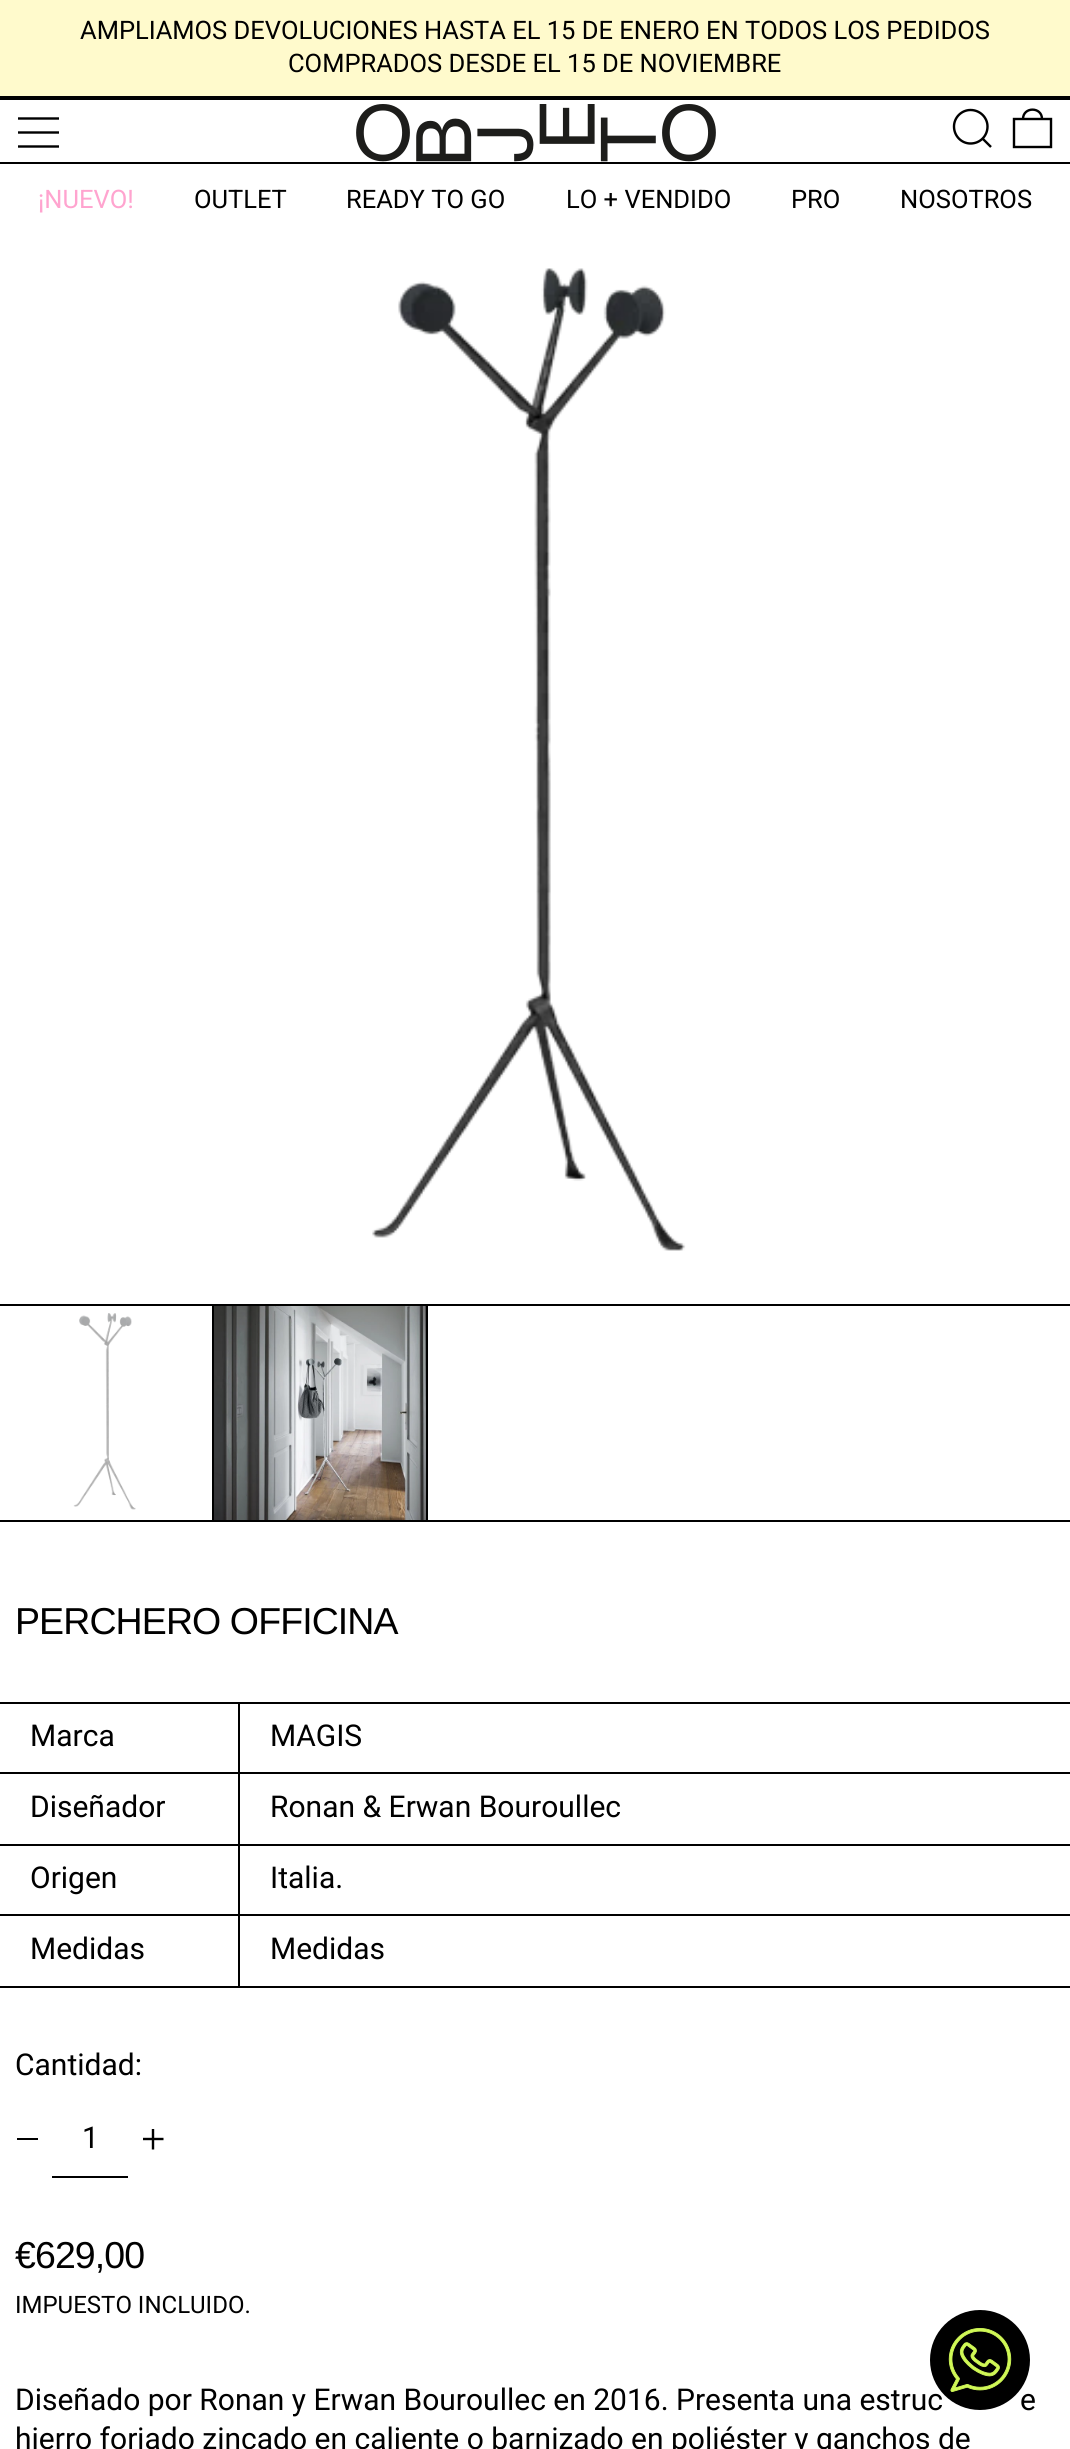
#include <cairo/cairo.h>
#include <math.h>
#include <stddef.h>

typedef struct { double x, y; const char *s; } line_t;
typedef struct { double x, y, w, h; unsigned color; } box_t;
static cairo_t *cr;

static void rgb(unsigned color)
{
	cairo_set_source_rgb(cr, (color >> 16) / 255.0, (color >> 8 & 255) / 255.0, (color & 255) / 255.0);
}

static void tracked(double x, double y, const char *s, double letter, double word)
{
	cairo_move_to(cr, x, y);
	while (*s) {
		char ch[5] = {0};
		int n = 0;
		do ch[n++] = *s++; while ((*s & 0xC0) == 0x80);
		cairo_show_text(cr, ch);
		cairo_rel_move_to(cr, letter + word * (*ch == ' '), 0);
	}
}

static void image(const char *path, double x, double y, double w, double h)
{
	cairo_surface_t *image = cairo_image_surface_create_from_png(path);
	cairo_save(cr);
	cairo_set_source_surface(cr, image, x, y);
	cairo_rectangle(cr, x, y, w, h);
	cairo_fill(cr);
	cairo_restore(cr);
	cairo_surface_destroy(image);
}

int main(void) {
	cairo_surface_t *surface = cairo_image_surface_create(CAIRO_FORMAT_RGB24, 1070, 2449);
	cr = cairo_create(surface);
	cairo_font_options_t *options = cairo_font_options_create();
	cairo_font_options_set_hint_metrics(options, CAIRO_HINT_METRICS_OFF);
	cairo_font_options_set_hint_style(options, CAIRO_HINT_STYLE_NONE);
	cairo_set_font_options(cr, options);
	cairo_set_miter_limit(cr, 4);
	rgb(0xffffff);
	cairo_paint(cr);
	{
		static const box_t items[] = {
			{0, 0, 1070, 96, 0xfffacc},
			{0, 96, 1070, 4, 0x000000},
			{0, 162, 1070, 2, 0x000000},
		};
		for (size_t i = 0; i < sizeof items / sizeof *items; i++) {
			rgb(items[i].color);
			cairo_rectangle(cr, items[i].x, items[i].y, items[i].w, items[i].h);
			cairo_fill(cr);
		}
	}
	cairo_new_path(cr);
	cairo_move_to(cr, 18, 118.5);
	cairo_line_to(cr, 59, 118.5);
	cairo_move_to(cr, 18, 132.5);
	cairo_line_to(cr, 59, 132.5);
	cairo_move_to(cr, 18, 146.5);
	cairo_line_to(cr, 59, 146.5);
	cairo_set_line_width(cr, 2.4);
	cairo_stroke(cr);
	image("img/1.png", 356, 104, 360, 58);
	cairo_new_path(cr);
	cairo_move_to(cr, 954, 126.5);
	cairo_curve_to(cr, 954, 136, 961.5, 143.5, 970.5, 143.5);
	cairo_curve_to(cr, 980, 143.5, 987.5, 136, 987.5, 126.5);
	cairo_curve_to(cr, 987.5, 117.5, 980, 110, 970.5, 110);
	cairo_curve_to(cr, 961.5, 110, 954, 117.5, 954, 126.5);
	cairo_close_path(cr);
	cairo_move_to(cr, 982.5, 138.5);
	cairo_line_to(cr, 991, 147);
	cairo_stroke(cr);
	cairo_new_path(cr);
	cairo_move_to(cr, 1014, 119);
	cairo_line_to(cr, 1051, 119);
	cairo_line_to(cr, 1051, 147);
	cairo_line_to(cr, 1014, 147);
	cairo_close_path(cr);
	cairo_move_to(cr, 1042, 119);
	cairo_curve_to(cr, 1042, 106.5, 1023, 106.5, 1023, 119);
	cairo_stroke(cr);
	cairo_rectangle(cr, 0, 1304, 1070, 2);
	cairo_fill(cr);
	image("img/2.png", 372, 268, 314, 983);
	cairo_rectangle(cr, 212, 1306, 216, 214);
	cairo_fill(cr);
	cairo_rectangle(cr, 0, 1520, 1070, 2);
	cairo_fill(cr);
	image("img/3.png", 73, 1313, 63, 197);
	image("img/4.png", 214, 1306, 212, 214);
	{
		static const box_t items[] = {
			{0, 1702, 1070, 2, 0x000000},
			{238, 1704, 2, 284, 0x000000},
			{0, 1772, 1070, 2, 0x000000},
			{0, 1844, 1070, 2, 0x000000},
			{0, 1914, 1070, 2, 0x000000},
			{0, 1986, 1070, 2, 0x000000},
			{17, 2138, 21, 2, 0x000000},
			{52, 2176, 76, 2, 0x000000},
		};
		for (size_t i = 0; i < sizeof items / sizeof *items; i++) {
			rgb(items[i].color);
			cairo_rectangle(cr, items[i].x, items[i].y, items[i].w, items[i].h);
			cairo_fill(cr);
		}
	}
	cairo_new_path(cr);
	cairo_move_to(cr, 153, 2129);
	cairo_line_to(cr, 153, 2149.5);
	cairo_move_to(cr, 143, 2139);
	cairo_line_to(cr, 163.5, 2139);
	cairo_stroke(cr);
	cairo_arc(cr, 980, 2360, 50, 0, 2 * M_PI);
	cairo_fill(cr);
	image("img/5.png", 948, 2328, 64, 64);
	cairo_select_font_face(cr, "Roboto", CAIRO_FONT_SLANT_NORMAL, CAIRO_FONT_WEIGHT_NORMAL);
	cairo_set_font_size(cr, 25.5);
	cairo_move_to(cr, 80, 39);
	cairo_show_text(cr, "AMPLIAMOS DEVOLUCIONES HASTA EL 15 DE ENERO EN TODOS LOS PEDIDOS");
	cairo_move_to(cr, 288, 72);
	cairo_show_text(cr, "COMPRADOS DESDE EL 15 DE NOVIEMBRE");
	rgb(0xffa4cf);
	cairo_move_to(cr, 38, 208);
	cairo_show_text(cr, "¡NUEVO!");
	rgb(0x000000);
	{
		static const line_t items[] = {
			{194, 208, "OUTLET"},
			{346, 208, "READY TO GO"},
			{566, 208, "LO + VENDIDO"},
			{791, 208, "PRO"},
			{900, 208, "NOSOTROS"},
		};
		for (size_t i = 0; i < sizeof items / sizeof *items; i++) {
			cairo_move_to(cr, items[i].x, items[i].y);
			cairo_show_text(cr, items[i].s);
		}
	}
	cairo_select_font_face(cr, "Liberation Sans", CAIRO_FONT_SLANT_NORMAL, CAIRO_FONT_WEIGHT_NORMAL);
	cairo_set_font_size(cr, 37.5);
	tracked(15, 1634, "PERCHERO OFFICINA", -0.9, 0);
	cairo_select_font_face(cr, "Roboto", CAIRO_FONT_SLANT_NORMAL, CAIRO_FONT_WEIGHT_NORMAL);
	cairo_set_font_size(cr, 30);
	{
		static const line_t items[] = {
			{30, 1746, "Marca"},
			{270, 1746, "MAGIS"},
			{30, 1817, "Diseñador"},
			{270, 1817, "Ronan & Erwan Bouroullec"},
			{30, 1888, "Origen"},
			{270, 1888, "Italia."},
			{30, 1959, "Medidas"},
			{270, 1959, "Medidas"},
			{15, 2075, "Cantidad:"},
			{82, 2148, "1"},
		};
		for (size_t i = 0; i < sizeof items / sizeof *items; i++) {
			cairo_move_to(cr, items[i].x, items[i].y);
			cairo_show_text(cr, items[i].s);
		}
	}
	cairo_select_font_face(cr, "Liberation Sans", CAIRO_FONT_SLANT_NORMAL, CAIRO_FONT_WEIGHT_NORMAL);
	cairo_set_font_size(cr, 37.5);
	tracked(15, 2268, "€629,00", -0.9, 0);
	cairo_select_font_face(cr, "Roboto", CAIRO_FONT_SLANT_NORMAL, CAIRO_FONT_WEIGHT_NORMAL);
	cairo_set_font_size(cr, 24);
	cairo_move_to(cr, 15, 2313);
	cairo_show_text(cr, "IMPUESTO INCLUIDO.");
	cairo_set_font_size(cr, 30);
	{
		static const line_t items[] = {
			{15, 2410, "Diseñado por Ronan y Erwan Bouroullec en 2016. Presenta una estruc"},
			{1020, 2410, "e"},
			{15, 2449, "hierro forjado zincado en caliente o barnizado en poliéster y ganchos de"},
		};
		for (size_t i = 0; i < sizeof items / sizeof *items; i++) {
			cairo_move_to(cr, items[i].x, items[i].y);
			cairo_show_text(cr, items[i].s);
		}
	}
	cairo_surface_write_to_png(surface, "page.png");
	cairo_font_options_destroy(options);
	cairo_destroy(cr);
	cairo_surface_destroy(surface);
	return 0;
}
